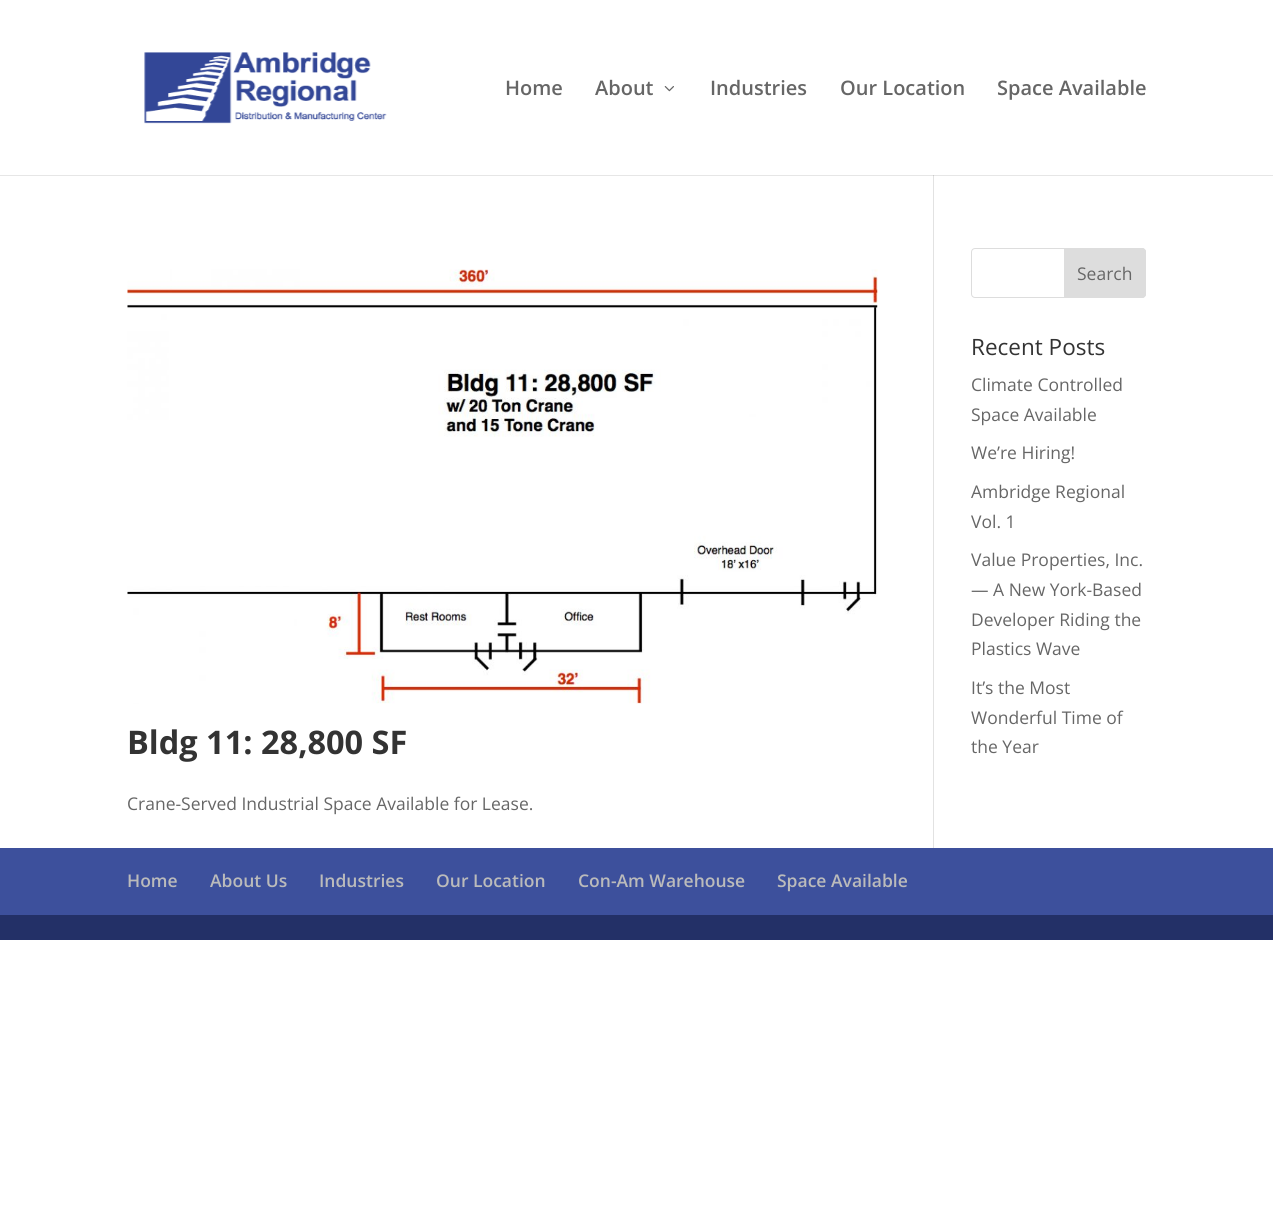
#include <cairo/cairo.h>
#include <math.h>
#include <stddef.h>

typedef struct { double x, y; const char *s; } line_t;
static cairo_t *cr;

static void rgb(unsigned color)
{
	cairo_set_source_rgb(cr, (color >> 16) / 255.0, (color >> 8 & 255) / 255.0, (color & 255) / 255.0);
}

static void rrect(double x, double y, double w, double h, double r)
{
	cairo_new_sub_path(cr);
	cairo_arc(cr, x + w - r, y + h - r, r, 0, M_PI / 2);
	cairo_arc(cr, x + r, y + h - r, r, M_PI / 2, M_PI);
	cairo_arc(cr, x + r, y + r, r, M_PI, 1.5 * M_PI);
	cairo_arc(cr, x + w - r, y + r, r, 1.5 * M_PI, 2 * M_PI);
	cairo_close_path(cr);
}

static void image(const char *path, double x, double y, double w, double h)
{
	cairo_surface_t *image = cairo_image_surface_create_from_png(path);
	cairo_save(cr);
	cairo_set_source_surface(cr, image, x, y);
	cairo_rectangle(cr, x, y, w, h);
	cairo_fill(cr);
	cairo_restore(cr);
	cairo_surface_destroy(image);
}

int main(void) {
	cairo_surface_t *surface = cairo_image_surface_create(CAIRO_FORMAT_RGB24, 1273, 1220);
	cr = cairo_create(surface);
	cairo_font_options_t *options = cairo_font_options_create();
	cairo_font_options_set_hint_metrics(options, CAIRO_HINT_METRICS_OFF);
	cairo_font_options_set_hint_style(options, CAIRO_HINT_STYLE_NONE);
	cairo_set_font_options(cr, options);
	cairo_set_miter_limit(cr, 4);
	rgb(0xffffff);
	cairo_paint(cr);
	rgb(0xe2e2e2);
	cairo_rectangle(cr, 933, 175, 1, 673);
	cairo_fill(cr);
	cairo_set_source_rgba(cr, 0, 0, 0, 0.1);
	cairo_new_path(cr);
	cairo_move_to(cr, 0, 175);
	cairo_line_to(cr, 0, 176);
	cairo_line_to(cr, 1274, 176);
	cairo_line_to(cr, 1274, 1);
	cairo_line_to(cr, 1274, 175);
	cairo_close_path(cr);
	cairo_fill(cr);
	image("img/1.png", 144, 52, 243, 72);
	image("img/2.png", 664, 86, 10, 6);
	rrect(971.5, 248.5, 174, 49, 3.5);
	rgb(0xdddddd);
	cairo_set_line_width(cr, 1);
	cairo_stroke(cr);
	cairo_new_path(cr);
	cairo_move_to(cr, 1064.5, 248.5);
	cairo_line_to(cr, 1142, 248.5);
	cairo_curve_to(cr, 1144, 248.5, 1145.5, 250, 1145.5, 252);
	cairo_line_to(cr, 1145.5, 294);
	cairo_curve_to(cr, 1145.5, 296, 1144, 297.5, 1142, 297.5);
	cairo_line_to(cr, 1064.5, 297.5);
	cairo_close_path(cr);
	cairo_fill_preserve(cr);
	cairo_stroke(cr);
	image("img/3.png", 127, 269, 751, 435);
	rgb(0x3d509c);
	cairo_rectangle(cr, 0, 848, 1273, 67);
	cairo_fill(cr);
	rgb(0x233067);
	cairo_rectangle(cr, 0, 915, 1273, 25);
	cairo_fill(cr);
	cairo_select_font_face(cr, "Open Sans SemiBold", CAIRO_FONT_SLANT_NORMAL, CAIRO_FONT_WEIGHT_NORMAL);
	cairo_set_font_size(cr, 20);
	rgb(0x666666);
	{
		static const line_t items[] = {
			{505, 95, "Home"},
			{595, 95, "About"},
			{710, 95, "Industries"},
			{840, 95, "Our Location"},
			{997, 95, "Space Available"},
		};
		for (size_t i = 0; i < sizeof items / sizeof *items; i++) {
			cairo_move_to(cr, items[i].x, items[i].y);
			cairo_show_text(cr, items[i].s);
		}
	}
	cairo_select_font_face(cr, "Open Sans", CAIRO_FONT_SLANT_NORMAL, CAIRO_FONT_WEIGHT_NORMAL);
	cairo_set_font_size(cr, 17.5);
	cairo_move_to(cr, 1077, 280);
	cairo_show_text(cr, "Search");
	cairo_set_font_size(cr, 22.5);
	rgb(0x333333);
	cairo_move_to(cr, 971, 355);
	cairo_show_text(cr, "Recent Posts");
	cairo_set_font_size(cr, 17.5);
	rgb(0x666666);
	{
		static const line_t items[] = {
			{971, 391, "Climate Controlled"},
			{971, 421, "Space Available"},
			{971, 459, "We’re Hiring!"},
			{971, 498, "Ambridge Regional"},
			{971, 528, "Vol. 1"},
			{971, 566, "Value Properties, Inc."},
			{971, 596, "— A New York-Based"},
			{971, 626, "Developer Riding the"},
			{971, 655, "Plastics Wave"},
			{971, 694, "It’s the Most"},
			{971, 724, "Wonderful Time of"},
			{971, 753, "the Year"},
		};
		for (size_t i = 0; i < sizeof items / sizeof *items; i++) {
			cairo_move_to(cr, items[i].x, items[i].y);
			cairo_show_text(cr, items[i].s);
		}
	}
	cairo_select_font_face(cr, "Open Sans", CAIRO_FONT_SLANT_NORMAL, CAIRO_FONT_WEIGHT_BOLD);
	cairo_set_font_size(cr, 32.5);
	rgb(0x333333);
	cairo_move_to(cr, 127, 754);
	cairo_show_text(cr, "Bldg 11: 28,800 SF");
	cairo_select_font_face(cr, "Open Sans", CAIRO_FONT_SLANT_NORMAL, CAIRO_FONT_WEIGHT_NORMAL);
	cairo_set_font_size(cr, 17.5);
	rgb(0x666666);
	cairo_move_to(cr, 127, 810);
	cairo_show_text(cr, "Crane-Served Industrial Space Available for Lease.");
	cairo_select_font_face(cr, "Open Sans SemiBold", CAIRO_FONT_SLANT_NORMAL, CAIRO_FONT_WEIGHT_NORMAL);
	rgb(0xbbbbbb);
	{
		static const line_t items[] = {
			{127, 887, "Home"},
			{210, 887, "About Us"},
			{319, 887, "Industries"},
			{436, 887, "Our Location"},
			{578, 887, "Con-Am Warehouse"},
			{777, 887, "Space Available"},
		};
		for (size_t i = 0; i < sizeof items / sizeof *items; i++) {
			cairo_move_to(cr, items[i].x, items[i].y);
			cairo_show_text(cr, items[i].s);
		}
	}
	cairo_surface_write_to_png(surface, "page.png");
	cairo_font_options_destroy(options);
	cairo_destroy(cr);
	cairo_surface_destroy(surface);
	return 0;
}
